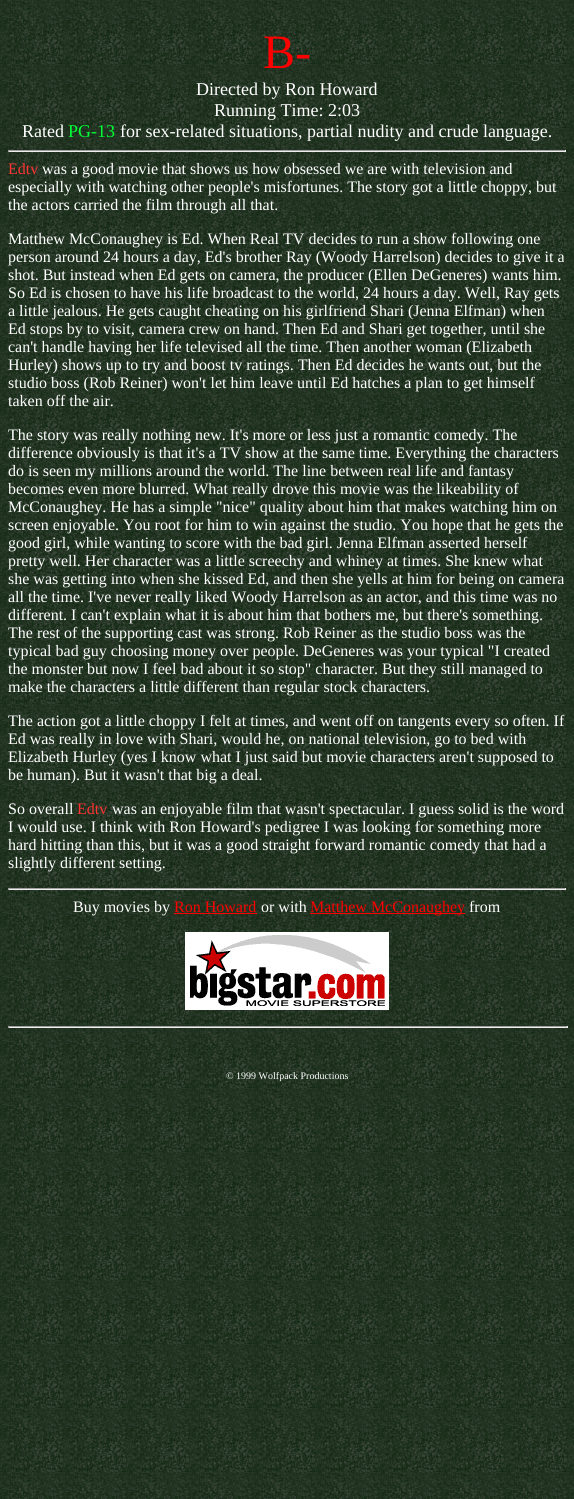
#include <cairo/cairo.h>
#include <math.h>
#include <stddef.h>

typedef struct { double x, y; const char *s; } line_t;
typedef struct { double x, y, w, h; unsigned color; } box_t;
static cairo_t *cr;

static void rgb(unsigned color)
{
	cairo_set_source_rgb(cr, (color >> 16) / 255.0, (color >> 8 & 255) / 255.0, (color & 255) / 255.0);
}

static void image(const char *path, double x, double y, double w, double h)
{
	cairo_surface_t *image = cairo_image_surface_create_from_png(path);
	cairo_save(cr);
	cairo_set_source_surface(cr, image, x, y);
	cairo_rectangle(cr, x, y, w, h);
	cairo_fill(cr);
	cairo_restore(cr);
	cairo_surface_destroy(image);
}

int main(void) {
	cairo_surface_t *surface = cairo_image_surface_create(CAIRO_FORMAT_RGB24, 574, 1499);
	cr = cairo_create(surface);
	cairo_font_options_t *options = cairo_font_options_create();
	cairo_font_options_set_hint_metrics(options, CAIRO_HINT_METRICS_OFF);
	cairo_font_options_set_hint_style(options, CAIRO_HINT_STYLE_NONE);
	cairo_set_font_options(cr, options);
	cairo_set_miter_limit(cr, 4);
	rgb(0xffffff);
	cairo_paint(cr);
	image("img/1.png", 0, 0, 574, 1499);
	{
		static const box_t items[] = {
			{8, 150, 558, 1, 0x9f9f9f},
			{565, 150, 1, 2, 0xeeeeee},
			{8, 151, 558, 1, 0xeeeeee},
			{8, 150, 1, 2, 0x9f9f9f},
			{8, 888, 558, 1, 0x9f9f9f},
			{565, 888, 1, 2, 0xeeeeee},
			{8, 889, 558, 1, 0xeeeeee},
			{8, 888, 1, 2, 0x9f9f9f},
			{174, 913, 83, 1, 0xff0000},
			{310, 913, 155, 1, 0xff0000},
		};
		for (size_t i = 0; i < sizeof items / sizeof *items; i++) {
			rgb(items[i].color);
			cairo_rectangle(cr, items[i].x, items[i].y, items[i].w, items[i].h);
			cairo_fill(cr);
		}
	}
	image("img/2.png", 185, 932, 204, 78);
	{
		static const box_t items[] = {
			{8, 1026, 560, 1, 0x9f9f9f},
			{567, 1026, 1, 2, 0xeeeeee},
			{8, 1027, 560, 1, 0xeeeeee},
			{8, 1026, 1, 2, 0x9f9f9f},
		};
		for (size_t i = 0; i < sizeof items / sizeof *items; i++) {
			rgb(items[i].color);
			cairo_rectangle(cr, items[i].x, items[i].y, items[i].w, items[i].h);
			cairo_fill(cr);
		}
	}
	cairo_select_font_face(cr, "Liberation Serif", CAIRO_FONT_SLANT_NORMAL, CAIRO_FONT_WEIGHT_NORMAL);
	cairo_set_font_size(cr, 48);
	rgb(0xff0000);
	cairo_move_to(cr, 263, 68);
	cairo_show_text(cr, "B-");
	cairo_set_font_size(cr, 18);
	rgb(0xffffff);
	{
		static const line_t items[] = {
			{196, 95, "Directed by Ron Howard"},
			{214, 116, "Running Time: 2:03"},
			{22, 137, "Rated"},
		};
		for (size_t i = 0; i < sizeof items / sizeof *items; i++) {
			cairo_move_to(cr, items[i].x, items[i].y);
			cairo_show_text(cr, items[i].s);
		}
	}
	rgb(0x00ff33);
	cairo_move_to(cr, 68, 137);
	cairo_show_text(cr, "PG-13");
	rgb(0xffffff);
	cairo_move_to(cr, 120, 137);
	cairo_show_text(cr, "for sex-related situations, partial nudity and crude language.");
	cairo_set_font_size(cr, 16);
	rgb(0xff3333);
	cairo_move_to(cr, 8, 174);
	cairo_show_text(cr, "Edtv");
	rgb(0xffffff);
	{
		static const line_t items[] = {
			{42, 174, "was a good movie that shows us how obsessed we are with television and"},
			{8, 192, "especially with watching other people's misfortunes. The story got a little choppy, but"},
			{8, 210, "the actors carried the film through all that."},
			{8, 244, "Matthew McConaughey is Ed. When Real TV decides to run a show following one"},
			{8, 262, "person around 24 hours a day, Ed's brother Ray (Woody Harrelson) decides to give it a"},
			{8, 280, "shot. But instead when Ed gets on camera, the producer (Ellen DeGeneres) wants him."},
			{8, 298, "So Ed is chosen to have his life broadcast to the world, 24 hours a day. Well, Ray gets"},
			{8, 316, "a little jealous. He gets caught cheating on his girlfriend Shari (Jenna Elfman) when"},
			{8, 334, "Ed stops by to visit, camera crew on hand. Then Ed and Shari get together, until she"},
			{8, 352, "can't handle having her life televised all the time. Then another woman (Elizabeth"},
			{8, 370, "Hurley) shows up to try and boost tv ratings. Then Ed decides he wants out, but the"},
			{8, 388, "studio boss (Rob Reiner) won't let him leave until Ed hatches a plan to get himself"},
			{8, 406, "taken off the air."},
			{8, 440, "The story was really nothing new. It's more or less just a romantic comedy. The"},
			{8, 458, "difference obviously is that it's a TV show at the same time. Everything the characters"},
			{8, 476, "do is seen my millions around the world. The line between real life and fantasy"},
			{8, 494, "becomes even more blurred. What really drove this movie was the likeability of"},
			{8, 512, "McConaughey. He has a simple \"nice\" quality about him that makes watching him on"},
			{8, 530, "screen enjoyable. You root for him to win against the studio. You hope that he gets the"},
			{8, 548, "good girl, while wanting to score with the bad girl. Jenna Elfman asserted herself"},
			{8, 566, "pretty well. Her character was a little screechy and whiney at times. She knew what"},
			{8, 584, "she was getting into when she kissed Ed, and then she yells at him for being on camera"},
			{8, 602, "all the time. I've never really liked Woody Harrelson as an actor, and this time was no"},
			{8, 620, "different. I can't explain what it is about him that bothers me, but there's something."},
			{8, 638, "The rest of the supporting cast was strong. Rob Reiner as the studio boss was the"},
			{8, 656, "typical bad guy choosing money over people. DeGeneres was your typical \"I created"},
			{8, 674, "the monster but now I feel bad about it so stop\" character. But they still managed to"},
			{8, 692, "make the characters a little different than regular stock characters."},
			{8, 726, "The action got a little choppy I felt at times, and went off on tangents every so often. If"},
			{8, 744, "Ed was really in love with Shari, would he, on national television, go to bed with"},
			{8, 762, "Elizabeth Hurley (yes I know what I just said but movie characters aren't supposed to"},
			{8, 780, "be human). But it wasn't that big a deal."},
			{8, 814, "So overall"},
		};
		for (size_t i = 0; i < sizeof items / sizeof *items; i++) {
			cairo_move_to(cr, items[i].x, items[i].y);
			cairo_show_text(cr, items[i].s);
		}
	}
	rgb(0xff3333);
	cairo_move_to(cr, 77, 814);
	cairo_show_text(cr, "Edtv");
	rgb(0xffffff);
	{
		static const line_t items[] = {
			{112, 814, "was an enjoyable film that wasn't spectacular. I guess solid is the word"},
			{8, 832, "I would use. I think with Ron Howard's pedigree I was looking for something more"},
			{8, 850, "hard hitting than this, but it was a good straight forward romantic comedy that had a"},
			{8, 868, "slightly different setting."},
			{73, 912, "Buy movies by"},
		};
		for (size_t i = 0; i < sizeof items / sizeof *items; i++) {
			cairo_move_to(cr, items[i].x, items[i].y);
			cairo_show_text(cr, items[i].s);
		}
	}
	rgb(0xff0000);
	cairo_move_to(cr, 174, 912);
	cairo_show_text(cr, "Ron Howard");
	rgb(0xffffff);
	cairo_move_to(cr, 261, 912);
	cairo_show_text(cr, "or with");
	rgb(0xff0000);
	cairo_move_to(cr, 310, 912);
	cairo_show_text(cr, "Matthew McConaughey");
	rgb(0xffffff);
	cairo_move_to(cr, 469, 912);
	cairo_show_text(cr, "from");
	cairo_set_font_size(cr, 10);
	cairo_move_to(cr, 226, 1079);
	cairo_show_text(cr, "© 1999 Wolfpack Productions");
	cairo_surface_write_to_png(surface, "page.png");
	cairo_font_options_destroy(options);
	cairo_destroy(cr);
	cairo_surface_destroy(surface);
	return 0;
}
